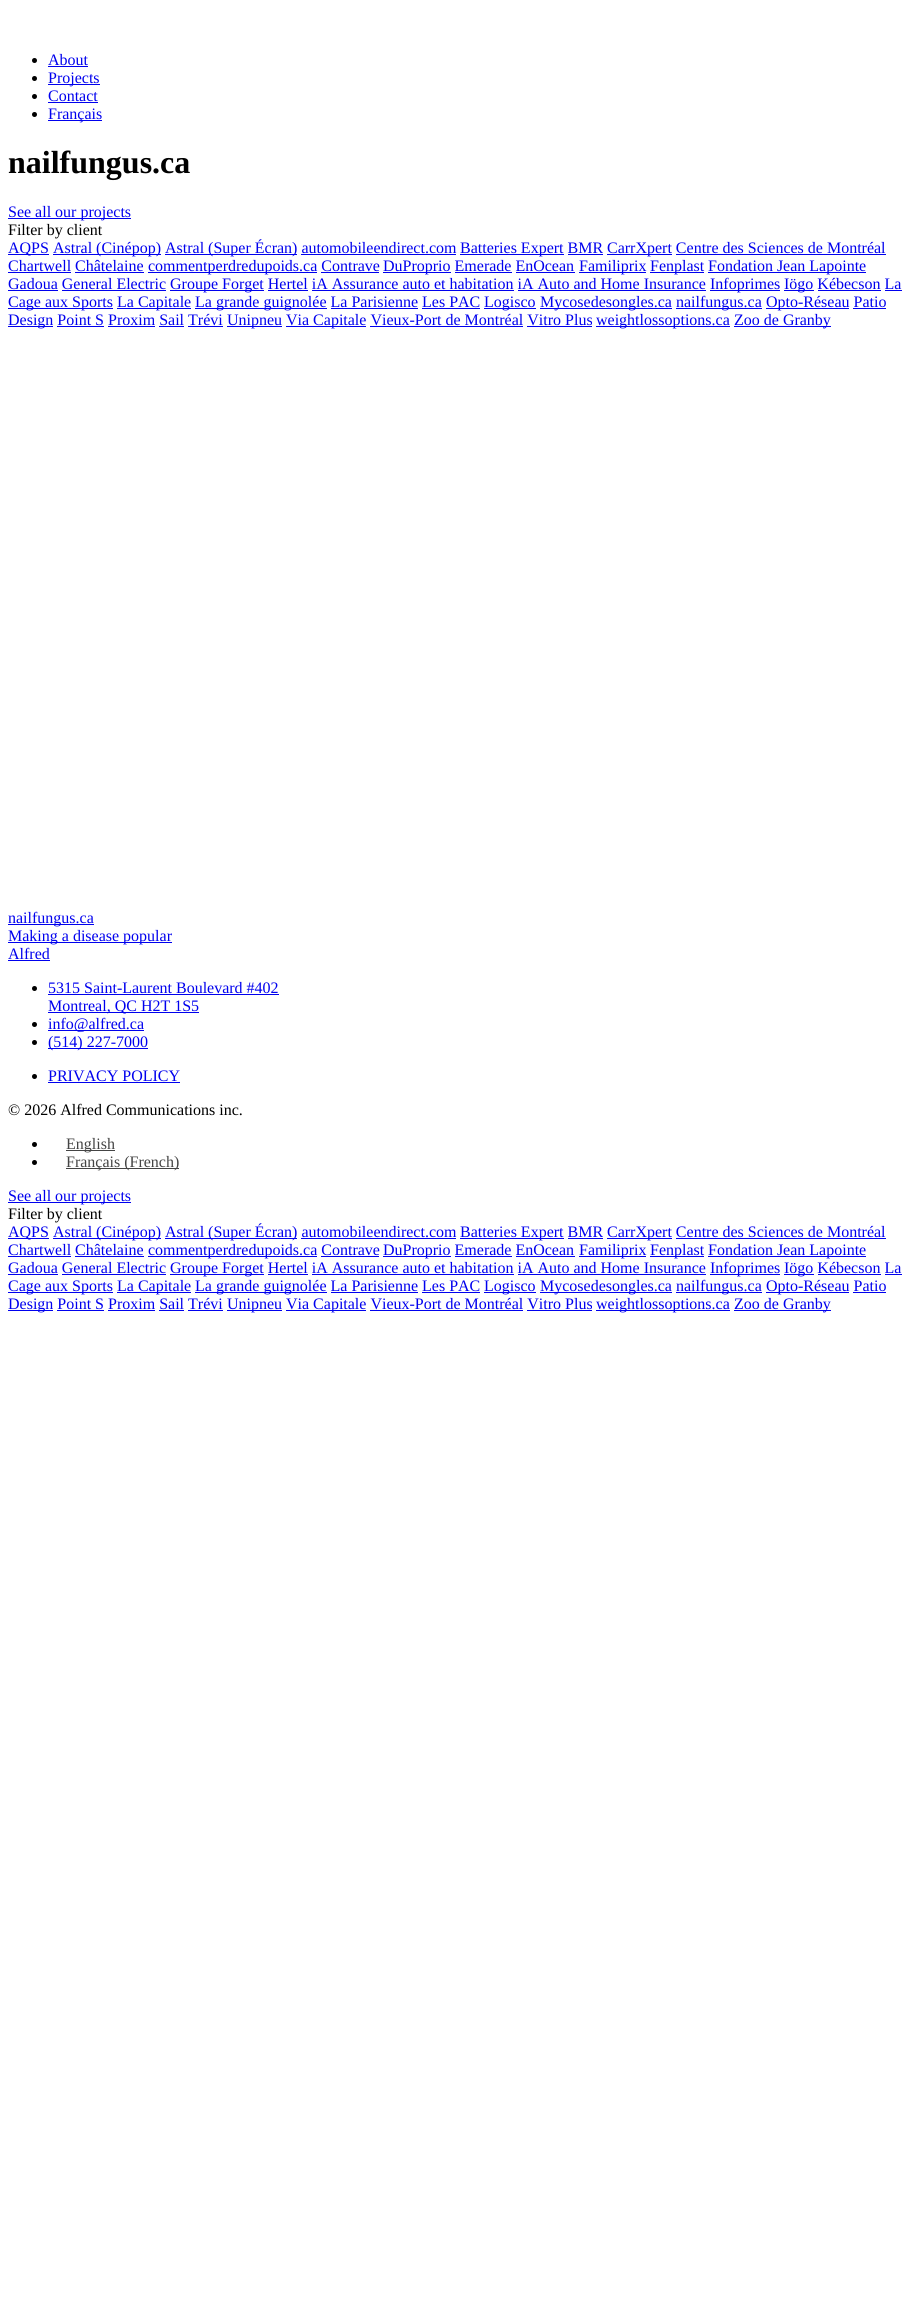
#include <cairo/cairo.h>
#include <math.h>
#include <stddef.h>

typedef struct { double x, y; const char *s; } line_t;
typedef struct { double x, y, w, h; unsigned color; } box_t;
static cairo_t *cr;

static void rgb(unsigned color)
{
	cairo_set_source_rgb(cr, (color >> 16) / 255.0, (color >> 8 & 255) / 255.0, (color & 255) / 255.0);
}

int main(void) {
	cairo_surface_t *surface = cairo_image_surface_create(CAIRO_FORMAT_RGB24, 924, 2300);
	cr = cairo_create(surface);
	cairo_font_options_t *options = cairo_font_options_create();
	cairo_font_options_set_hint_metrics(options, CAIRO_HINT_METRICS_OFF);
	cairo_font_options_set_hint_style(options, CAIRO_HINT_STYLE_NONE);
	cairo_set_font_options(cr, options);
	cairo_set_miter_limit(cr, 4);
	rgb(0xffffff);
	cairo_paint(cr);
	rgb(0x000000);
	cairo_arc(cr, 34.5, 60.5, 2.5, 0, 2 * M_PI);
	cairo_fill(cr);
	rgb(0x0000ee);
	cairo_rectangle(cr, 48, 66, 40, 1);
	cairo_fill(cr);
	rgb(0x000000);
	cairo_arc(cr, 34.5, 78.5, 2.5, 0, 2 * M_PI);
	cairo_fill(cr);
	rgb(0x0000ee);
	cairo_rectangle(cr, 48, 84, 52, 1);
	cairo_fill(cr);
	rgb(0x000000);
	cairo_arc(cr, 34.5, 96.5, 2.5, 0, 2 * M_PI);
	cairo_fill(cr);
	rgb(0x0000ee);
	cairo_rectangle(cr, 48, 102, 50, 1);
	cairo_fill(cr);
	rgb(0x000000);
	cairo_arc(cr, 34.5, 114.5, 2.5, 0, 2 * M_PI);
	cairo_fill(cr);
	{
		static const box_t items[] = {
			{48, 120, 54, 1, 0x0000ee},
			{8, 218, 123, 1, 0x0000ee},
			{8, 254, 41, 1, 0x0000ee},
			{53, 254, 108, 1, 0x0000ee},
			{165, 254, 132, 1, 0x0000ee},
			{460, 254, 104, 1, 0x0000ee},
			{607, 254, 65, 1, 0x0000ee},
			{301, 254, 155, 1, 0x0000ee},
			{568, 254, 35, 1, 0x0000ee},
			{676, 254, 210, 1, 0x0000ee},
			{8, 272, 63, 1, 0x0000ee},
			{148, 272, 169, 1, 0x0000ee},
			{383, 272, 68, 1, 0x0000ee},
			{579, 272, 67, 1, 0x0000ee},
			{650, 272, 54, 1, 0x0000ee},
			{708, 272, 158, 1, 0x0000ee},
			{75, 272, 69, 1, 0x0000ee},
			{321, 272, 58, 1, 0x0000ee},
			{455, 272, 57, 1, 0x0000ee},
			{516, 272, 59, 1, 0x0000ee},
			{8, 290, 50, 1, 0x0000ee},
			{170, 290, 94, 1, 0x0000ee},
			{710, 290, 70, 1, 0x0000ee},
			{784, 290, 30, 1, 0x0000ee},
			{62, 290, 104, 1, 0x0000ee},
			{268, 290, 40, 1, 0x0000ee},
			{312, 290, 202, 1, 0x0000ee},
			{518, 290, 188, 1, 0x0000ee},
			{818, 290, 63, 1, 0x0000ee},
			{885, 290, 17, 1, 0x0000ee},
			{8, 308, 105, 1, 0x0000ee},
			{117, 308, 74, 1, 0x0000ee},
			{195, 308, 132, 1, 0x0000ee},
			{484, 308, 52, 1, 0x0000ee},
			{540, 308, 132, 1, 0x0000ee},
			{676, 308, 86, 1, 0x0000ee},
			{766, 308, 83, 1, 0x0000ee},
			{331, 308, 87, 1, 0x0000ee},
			{422, 308, 58, 1, 0x0000ee},
			{853, 308, 33, 1, 0x0000ee},
			{8, 326, 45, 1, 0x0000ee},
			{227, 326, 55, 1, 0x0000ee},
			{286, 326, 80, 1, 0x0000ee},
			{596, 326, 134, 1, 0x0000ee},
			{734, 326, 97, 1, 0x0000ee},
			{57, 326, 47, 1, 0x0000ee},
			{108, 326, 47, 1, 0x0000ee},
			{159, 326, 25, 1, 0x0000ee},
			{188, 326, 35, 1, 0x0000ee},
			{370, 326, 153, 1, 0x0000ee},
			{527, 326, 65, 1, 0x0000ee},
			{8, 924, 86, 1, 0x0000ee},
			{8, 942, 164, 1, 0x0000ee},
			{8, 960, 42, 1, 0x0000ee},
		};
		for (size_t i = 0; i < sizeof items / sizeof *items; i++) {
			rgb(items[i].color);
			cairo_rectangle(cr, items[i].x, items[i].y, items[i].w, items[i].h);
			cairo_fill(cr);
		}
	}
	rgb(0x000000);
	cairo_arc(cr, 34.5, 988.5, 2.5, 0, 2 * M_PI);
	cairo_fill(cr);
	rgb(0x0000ee);
	cairo_rectangle(cr, 48, 994, 231, 1);
	cairo_fill(cr);
	cairo_rectangle(cr, 48, 1012, 151, 1);
	cairo_fill(cr);
	rgb(0x000000);
	cairo_arc(cr, 34.5, 1024.5, 2.5, 0, 2 * M_PI);
	cairo_fill(cr);
	rgb(0x0000ee);
	cairo_rectangle(cr, 48, 1030, 96, 1);
	cairo_fill(cr);
	rgb(0x000000);
	cairo_arc(cr, 34.5, 1042.5, 2.5, 0, 2 * M_PI);
	cairo_fill(cr);
	rgb(0x0000ee);
	cairo_rectangle(cr, 48, 1048, 100, 1);
	cairo_fill(cr);
	rgb(0x000000);
	cairo_arc(cr, 34.5, 1076.5, 2.5, 0, 2 * M_PI);
	cairo_fill(cr);
	rgb(0x0000ee);
	cairo_rectangle(cr, 48, 1082, 132, 1);
	cairo_fill(cr);
	rgb(0x000000);
	cairo_arc(cr, 34.5, 1144.5, 2.5, 0, 2 * M_PI);
	cairo_fill(cr);
	rgb(0x444444);
	cairo_rectangle(cr, 66, 1150, 49, 1);
	cairo_fill(cr);
	rgb(0x000000);
	cairo_arc(cr, 34.5, 1162.5, 2.5, 0, 2 * M_PI);
	cairo_fill(cr);
	{
		static const box_t items[] = {
			{66, 1168, 113, 1, 0x444444},
			{8, 1202, 123, 1, 0x0000ee},
			{8, 1238, 41, 1, 0x0000ee},
			{53, 1238, 108, 1, 0x0000ee},
			{165, 1238, 132, 1, 0x0000ee},
			{460, 1238, 104, 1, 0x0000ee},
			{607, 1238, 65, 1, 0x0000ee},
			{301, 1238, 155, 1, 0x0000ee},
			{568, 1238, 35, 1, 0x0000ee},
			{676, 1238, 210, 1, 0x0000ee},
			{8, 1256, 63, 1, 0x0000ee},
			{148, 1256, 169, 1, 0x0000ee},
			{383, 1256, 68, 1, 0x0000ee},
			{579, 1256, 67, 1, 0x0000ee},
			{650, 1256, 54, 1, 0x0000ee},
			{708, 1256, 158, 1, 0x0000ee},
			{75, 1256, 69, 1, 0x0000ee},
			{321, 1256, 58, 1, 0x0000ee},
			{455, 1256, 57, 1, 0x0000ee},
			{516, 1256, 59, 1, 0x0000ee},
			{8, 1274, 50, 1, 0x0000ee},
			{170, 1274, 94, 1, 0x0000ee},
			{710, 1274, 70, 1, 0x0000ee},
			{784, 1274, 30, 1, 0x0000ee},
			{62, 1274, 104, 1, 0x0000ee},
			{268, 1274, 40, 1, 0x0000ee},
			{312, 1274, 202, 1, 0x0000ee},
			{518, 1274, 188, 1, 0x0000ee},
			{818, 1274, 63, 1, 0x0000ee},
			{885, 1274, 17, 1, 0x0000ee},
			{8, 1292, 105, 1, 0x0000ee},
			{117, 1292, 74, 1, 0x0000ee},
			{195, 1292, 132, 1, 0x0000ee},
			{484, 1292, 52, 1, 0x0000ee},
			{540, 1292, 132, 1, 0x0000ee},
			{676, 1292, 86, 1, 0x0000ee},
			{766, 1292, 83, 1, 0x0000ee},
			{331, 1292, 87, 1, 0x0000ee},
			{422, 1292, 58, 1, 0x0000ee},
			{853, 1292, 33, 1, 0x0000ee},
			{8, 1310, 45, 1, 0x0000ee},
			{227, 1310, 55, 1, 0x0000ee},
			{286, 1310, 80, 1, 0x0000ee},
			{596, 1310, 134, 1, 0x0000ee},
			{734, 1310, 97, 1, 0x0000ee},
			{57, 1310, 47, 1, 0x0000ee},
			{108, 1310, 47, 1, 0x0000ee},
			{159, 1310, 25, 1, 0x0000ee},
			{188, 1310, 35, 1, 0x0000ee},
			{370, 1310, 153, 1, 0x0000ee},
			{527, 1310, 65, 1, 0x0000ee},
		};
		for (size_t i = 0; i < sizeof items / sizeof *items; i++) {
			rgb(items[i].color);
			cairo_rectangle(cr, items[i].x, items[i].y, items[i].w, items[i].h);
			cairo_fill(cr);
		}
	}
	cairo_select_font_face(cr, "Liberation Serif", CAIRO_FONT_SLANT_NORMAL, CAIRO_FONT_WEIGHT_NORMAL);
	cairo_set_font_size(cr, 16);
	{
		static const line_t items[] = {
			{48, 65, "About"},
			{48, 83, "Projects"},
			{48, 101, "Contact"},
			{48, 119, "Français"},
		};
		for (size_t i = 0; i < sizeof items / sizeof *items; i++) {
			cairo_move_to(cr, items[i].x, items[i].y);
			cairo_show_text(cr, items[i].s);
		}
	}
	cairo_select_font_face(cr, "Liberation Serif", CAIRO_FONT_SLANT_NORMAL, CAIRO_FONT_WEIGHT_BOLD);
	cairo_set_font_size(cr, 32);
	rgb(0x000000);
	cairo_move_to(cr, 8, 173);
	cairo_show_text(cr, "nailfungus.ca");
	cairo_select_font_face(cr, "Liberation Serif", CAIRO_FONT_SLANT_NORMAL, CAIRO_FONT_WEIGHT_NORMAL);
	cairo_set_font_size(cr, 16);
	rgb(0x0000ee);
	cairo_move_to(cr, 8, 217);
	cairo_show_text(cr, "See all our projects");
	rgb(0x000000);
	cairo_move_to(cr, 8, 235);
	cairo_show_text(cr, "Filter by client");
	rgb(0x0000ee);
	{
		static const line_t items[] = {
			{8, 253, "AQPS"},
			{53, 253, "Astral (Cinépop)"},
			{165, 253, "Astral (Super Écran) automobileendirect.com"},
			{460, 253, "Batteries Expert BMR"},
			{607, 253, "CarrXpert Centre des Sciences de Montréal"},
			{8, 271, "Chartwell Châtelaine"},
			{148, 271, "commentperdredupoids.ca Contrave"},
			{383, 271, "DuProprio Emerade EnOcean"},
			{579, 271, "Familiprix"},
			{650, 271, "Fenplast"},
			{708, 271, "Fondation Jean Lapointe"},
			{8, 289, "Gadoua General Electric"},
			{170, 289, "Groupe Forget Hertel iA Assurance auto et habitation iA Auto and Home Insurance"},
			{710, 289, "Infoprimes"},
			{784, 289, "Iögo Kébecson La"},
			{8, 307, "Cage aux Sports"},
			{117, 307, "La Capitale"},
			{195, 307, "La grande guignolée La Parisienne Les PAC"},
			{484, 307, "Logisco"},
			{540, 307, "Mycosedesongles.ca"},
			{676, 307, "nailfungus.ca"},
			{766, 307, "Opto-Réseau Patio"},
			{8, 325, "Design Point S Proxim Sail Trévi"},
			{227, 325, "Unipneu"},
			{286, 325, "Via Capitale Vieux-Port de Montréal Vitro Plus"},
			{596, 325, "weightlossoptions.ca"},
			{734, 325, "Zoo de Granby"},
			{8, 923, "nailfungus.ca"},
			{8, 941, "Making a disease popular"},
			{8, 959, "Alfred"},
			{48, 993, "5315 Saint-Laurent Boulevard #402"},
			{48, 1011, "Montreal, QC H2T 1S5"},
			{48, 1029, "info@alfred.ca"},
			{48, 1047, "(514) 227-7000"},
			{48, 1081, "PRIVACY POLICY"},
		};
		for (size_t i = 0; i < sizeof items / sizeof *items; i++) {
			cairo_move_to(cr, items[i].x, items[i].y);
			cairo_show_text(cr, items[i].s);
		}
	}
	rgb(0x000000);
	cairo_move_to(cr, 8, 1115);
	cairo_show_text(cr, "© 2026 Alfred Communications inc.");
	rgb(0x444444);
	cairo_move_to(cr, 66, 1149);
	cairo_show_text(cr, "English");
	cairo_move_to(cr, 66, 1167);
	cairo_show_text(cr, "Français (French)");
	rgb(0x0000ee);
	cairo_move_to(cr, 8, 1201);
	cairo_show_text(cr, "See all our projects");
	rgb(0x000000);
	cairo_move_to(cr, 8, 1219);
	cairo_show_text(cr, "Filter by client");
	rgb(0x0000ee);
	{
		static const line_t items[] = {
			{8, 1237, "AQPS"},
			{53, 1237, "Astral (Cinépop)"},
			{165, 1237, "Astral (Super Écran) automobileendirect.com"},
			{460, 1237, "Batteries Expert BMR"},
			{607, 1237, "CarrXpert Centre des Sciences de Montréal"},
			{8, 1255, "Chartwell Châtelaine"},
			{148, 1255, "commentperdredupoids.ca Contrave"},
			{383, 1255, "DuProprio Emerade EnOcean"},
			{579, 1255, "Familiprix"},
			{650, 1255, "Fenplast"},
			{708, 1255, "Fondation Jean Lapointe"},
			{8, 1273, "Gadoua General Electric"},
			{170, 1273, "Groupe Forget Hertel iA Assurance auto et habitation iA Auto and Home Insurance"},
			{710, 1273, "Infoprimes"},
			{784, 1273, "Iögo Kébecson La"},
			{8, 1291, "Cage aux Sports"},
			{117, 1291, "La Capitale"},
			{195, 1291, "La grande guignolée La Parisienne Les PAC"},
			{484, 1291, "Logisco"},
			{540, 1291, "Mycosedesongles.ca"},
			{676, 1291, "nailfungus.ca"},
			{766, 1291, "Opto-Réseau Patio"},
			{8, 1309, "Design Point S Proxim Sail Trévi"},
			{227, 1309, "Unipneu"},
			{286, 1309, "Via Capitale Vieux-Port de Montréal Vitro Plus"},
			{596, 1309, "weightlossoptions.ca"},
			{734, 1309, "Zoo de Granby"},
		};
		for (size_t i = 0; i < sizeof items / sizeof *items; i++) {
			cairo_move_to(cr, items[i].x, items[i].y);
			cairo_show_text(cr, items[i].s);
		}
	}
	cairo_surface_write_to_png(surface, "page.png");
	cairo_font_options_destroy(options);
	cairo_destroy(cr);
	cairo_surface_destroy(surface);
	return 0;
}
